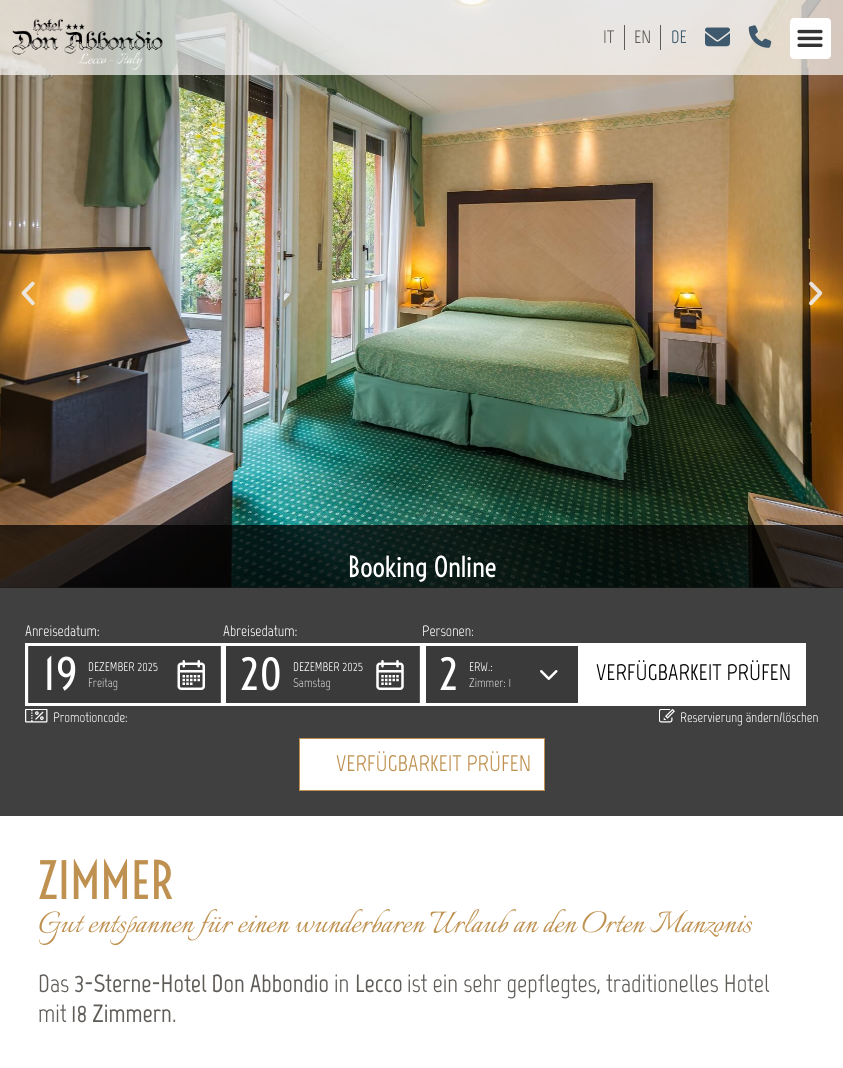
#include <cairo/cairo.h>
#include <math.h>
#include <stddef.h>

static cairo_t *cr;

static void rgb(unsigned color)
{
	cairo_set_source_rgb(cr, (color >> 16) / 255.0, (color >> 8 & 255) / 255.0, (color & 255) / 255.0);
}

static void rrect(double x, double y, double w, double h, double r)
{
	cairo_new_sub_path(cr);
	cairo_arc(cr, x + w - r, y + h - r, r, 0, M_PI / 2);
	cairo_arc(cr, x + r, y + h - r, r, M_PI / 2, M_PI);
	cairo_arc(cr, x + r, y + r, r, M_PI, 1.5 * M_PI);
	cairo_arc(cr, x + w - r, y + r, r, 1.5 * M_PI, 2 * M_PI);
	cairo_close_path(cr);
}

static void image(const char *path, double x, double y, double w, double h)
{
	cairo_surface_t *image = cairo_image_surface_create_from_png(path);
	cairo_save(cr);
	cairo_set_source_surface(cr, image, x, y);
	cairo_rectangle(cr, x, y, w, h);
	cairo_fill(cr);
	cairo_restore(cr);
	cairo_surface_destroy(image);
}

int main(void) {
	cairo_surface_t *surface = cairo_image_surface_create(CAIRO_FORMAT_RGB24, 843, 1068);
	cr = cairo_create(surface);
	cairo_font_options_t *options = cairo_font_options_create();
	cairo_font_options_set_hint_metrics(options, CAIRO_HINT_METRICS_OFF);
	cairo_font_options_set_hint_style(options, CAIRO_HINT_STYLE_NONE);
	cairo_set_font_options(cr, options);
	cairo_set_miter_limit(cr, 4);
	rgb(0xffffff);
	cairo_paint(cr);
	rgb(0x5f5c58);
	cairo_rectangle(cr, 0, 587, 843, 1);
	cairo_fill(cr);
	image("img/5.png", 0, 0, 843, 588);
	cairo_set_source_rgba(cr, 1, 1, 1, 0.67);
	cairo_rectangle(cr, 0, 0, 843, 75);
	cairo_fill(cr);
	image("img/1.png", 12, 18, 151, 52);
	rgb(0x5f5c58);
	cairo_rectangle(cr, 624, 25, 1, 25);
	cairo_fill(cr);
	cairo_rectangle(cr, 660, 25, 1, 25);
	cairo_fill(cr);
	image("img/2.png", 705, 27, 25, 20);
	image("img/3.png", 748, 25, 24, 23);
	rgb(0xffffff);
	rrect(790, 18, 41, 41, 4);
	cairo_fill(cr);
	image("img/4.png", 797, 29, 26, 18);
	image("img/6.png", 21, 281, 14, 25);
	image("img/7.png", 809, 281, 14, 25);
	cairo_set_source_rgba(cr, 0.008, 0.004, 0.004, 0.75);
	cairo_rectangle(cr, 0, 525, 843, 291);
	cairo_fill(cr);
	rgb(0x3b3a3a);
	cairo_rectangle(cr, 28.5, 645.5, 192, 58);
	cairo_fill_preserve(cr);
	rgb(0x585858);
	cairo_set_line_width(cr, 1);
	cairo_stroke(cr);
	cairo_rectangle(cr, 26.5, 644.5, 196, 60);
	rgb(0xffffff);
	cairo_set_line_width(cr, 3);
	cairo_stroke(cr);
	image("img/8.png", 177, 660, 28, 30);
	cairo_set_source_rgba(cr, 0, 0, 0, 0.1);
	cairo_rectangle(cr, 225.5, 645.5, 194, 58);
	cairo_fill_preserve(cr);
	rgb(0x585858);
	cairo_set_line_width(cr, 1);
	cairo_stroke(cr);
	cairo_rectangle(cr, 224.5, 644.5, 197, 60);
	rgb(0xffffff);
	cairo_set_line_width(cr, 3);
	cairo_stroke(cr);
	image("img/9.png", 376, 660, 28, 30);
	rgb(0x3b3a3a);
	cairo_rectangle(cr, 424.5, 644.5, 155, 60);
	cairo_fill_preserve(cr);
	rgb(0xffffff);
	cairo_stroke(cr);
	image("img/10.png", 540, 670, 18, 10);
	cairo_rectangle(cr, 581, 643, 225, 63);
	cairo_fill(cr);
	image("img/11.png", 25, 709, 23, 14);
	image("img/12.png", 659, 709, 16, 14);
	cairo_rectangle(cr, 299.5, 738.5, 245, 52);
	cairo_fill_preserve(cr);
	rgb(0xbf9150);
	cairo_set_line_width(cr, 1);
	cairo_stroke(cr);
	cairo_select_font_face(cr, "Marvel", CAIRO_FONT_SLANT_NORMAL, CAIRO_FONT_WEIGHT_NORMAL);
	cairo_set_font_size(cr, 18);
	rgb(0x5f5c58);
	cairo_move_to(cr, 603, 43);
	cairo_show_text(cr, "IT");
	cairo_move_to(cr, 634, 43);
	cairo_show_text(cr, "EN");
	rgb(0x3e596d);
	cairo_move_to(cr, 671, 43);
	cairo_show_text(cr, "DE");
	cairo_select_font_face(cr, "Voltaire", CAIRO_FONT_SLANT_NORMAL, CAIRO_FONT_WEIGHT_NORMAL);
	cairo_set_font_size(cr, 27.5);
	rgb(0xffffff);
	cairo_move_to(cr, 348, 577);
	cairo_show_text(cr, "Booking Online");
	cairo_select_font_face(cr, "Marvel", CAIRO_FONT_SLANT_NORMAL, CAIRO_FONT_WEIGHT_NORMAL);
	cairo_set_font_size(cr, 15);
	cairo_move_to(cr, 25, 636);
	cairo_show_text(cr, "Anreisedatum:");
	cairo_select_font_face(cr, "Voltaire", CAIRO_FONT_SLANT_NORMAL, CAIRO_FONT_WEIGHT_NORMAL);
	cairo_set_font_size(cr, 42);
	cairo_move_to(cr, 43, 690);
	cairo_show_text(cr, "19");
	cairo_select_font_face(cr, "Marvel", CAIRO_FONT_SLANT_NORMAL, CAIRO_FONT_WEIGHT_NORMAL);
	cairo_set_font_size(cr, 12.5);
	cairo_move_to(cr, 88, 671);
	cairo_show_text(cr, "DEZEMBER 2025");
	rgb(0xcecece);
	cairo_move_to(cr, 88, 687);
	cairo_show_text(cr, "Freitag");
	cairo_set_font_size(cr, 15);
	rgb(0xffffff);
	cairo_move_to(cr, 223, 636);
	cairo_show_text(cr, "Abreisedatum:");
	cairo_select_font_face(cr, "Voltaire", CAIRO_FONT_SLANT_NORMAL, CAIRO_FONT_WEIGHT_NORMAL);
	cairo_set_font_size(cr, 42);
	cairo_move_to(cr, 240, 690);
	cairo_show_text(cr, "20");
	cairo_select_font_face(cr, "Marvel", CAIRO_FONT_SLANT_NORMAL, CAIRO_FONT_WEIGHT_NORMAL);
	cairo_set_font_size(cr, 12.5);
	cairo_move_to(cr, 293, 671);
	cairo_show_text(cr, "DEZEMBER 2025");
	rgb(0xcecece);
	cairo_move_to(cr, 293, 687);
	cairo_show_text(cr, "Samstag");
	cairo_set_font_size(cr, 15);
	rgb(0xffffff);
	cairo_move_to(cr, 422, 636);
	cairo_show_text(cr, "Personen:");
	cairo_select_font_face(cr, "Voltaire", CAIRO_FONT_SLANT_NORMAL, CAIRO_FONT_WEIGHT_NORMAL);
	cairo_set_font_size(cr, 42);
	cairo_move_to(cr, 439, 690);
	cairo_show_text(cr, "2");
	cairo_select_font_face(cr, "Marvel", CAIRO_FONT_SLANT_NORMAL, CAIRO_FONT_WEIGHT_NORMAL);
	cairo_set_font_size(cr, 12.5);
	cairo_move_to(cr, 469, 671);
	cairo_show_text(cr, "ERW.:");
	rgb(0xcecece);
	cairo_move_to(cr, 469, 687);
	cairo_show_text(cr, "Zimmer: 1");
	cairo_set_font_size(cr, 22.5);
	rgb(0x000000);
	cairo_move_to(cr, 596, 680);
	cairo_show_text(cr, "VERFÜGBARKEIT PRÜFEN");
	cairo_set_font_size(cr, 13.75);
	rgb(0xffffff);
	cairo_move_to(cr, 53, 722);
	cairo_show_text(cr, "Promotioncode:");
	cairo_move_to(cr, 680, 722);
	cairo_show_text(cr, "Reservierung ändern/löschen");
	cairo_set_font_size(cr, 22.5);
	rgb(0xbf9150);
	cairo_move_to(cr, 336, 771);
	cairo_show_text(cr, "VERFÜGBARKEIT PRÜFEN");
	cairo_select_font_face(cr, "Voltaire", CAIRO_FONT_SLANT_NORMAL, CAIRO_FONT_WEIGHT_NORMAL);
	cairo_set_font_size(cr, 50);
	cairo_move_to(cr, 38, 899);
	cairo_show_text(cr, "ZIMMER");
	cairo_select_font_face(cr, "Italianno", CAIRO_FONT_SLANT_NORMAL, CAIRO_FONT_WEIGHT_NORMAL);
	cairo_set_font_size(cr, 37.5);
	cairo_move_to(cr, 38, 932);
	cairo_show_text(cr, "Gut entspannen für einen wunderbaren Urlaub an den Orten Manzonis");
	cairo_select_font_face(cr, "Marvel", CAIRO_FONT_SLANT_NORMAL, CAIRO_FONT_WEIGHT_NORMAL);
	cairo_set_font_size(cr, 25);
	rgb(0x5f5c58);
	cairo_move_to(cr, 38, 992);
	cairo_show_text(cr, "Das");
	cairo_select_font_face(cr, "Marvel", CAIRO_FONT_SLANT_NORMAL, CAIRO_FONT_WEIGHT_BOLD);
	cairo_move_to(cr, 74, 992);
	cairo_show_text(cr, "3-Sterne-Hotel Don Abbondio");
	cairo_select_font_face(cr, "Marvel", CAIRO_FONT_SLANT_NORMAL, CAIRO_FONT_WEIGHT_NORMAL);
	cairo_move_to(cr, 334, 992);
	cairo_show_text(cr, "in");
	cairo_select_font_face(cr, "Marvel", CAIRO_FONT_SLANT_NORMAL, CAIRO_FONT_WEIGHT_BOLD);
	cairo_move_to(cr, 355, 992);
	cairo_show_text(cr, "Lecco");
	cairo_select_font_face(cr, "Marvel", CAIRO_FONT_SLANT_NORMAL, CAIRO_FONT_WEIGHT_NORMAL);
	cairo_move_to(cr, 407, 992);
	cairo_show_text(cr, "ist ein sehr gepflegtes, traditionelles Hotel");
	cairo_move_to(cr, 38, 1022);
	cairo_show_text(cr, "mit");
	cairo_select_font_face(cr, "Marvel", CAIRO_FONT_SLANT_NORMAL, CAIRO_FONT_WEIGHT_BOLD);
	cairo_move_to(cr, 71, 1022);
	cairo_show_text(cr, "18 Zimmern");
	cairo_select_font_face(cr, "Marvel", CAIRO_FONT_SLANT_NORMAL, CAIRO_FONT_WEIGHT_NORMAL);
	cairo_move_to(cr, 172, 1022);
	cairo_show_text(cr, ".");
	cairo_surface_write_to_png(surface, "page.png");
	cairo_font_options_destroy(options);
	cairo_destroy(cr);
	cairo_surface_destroy(surface);
	return 0;
}
